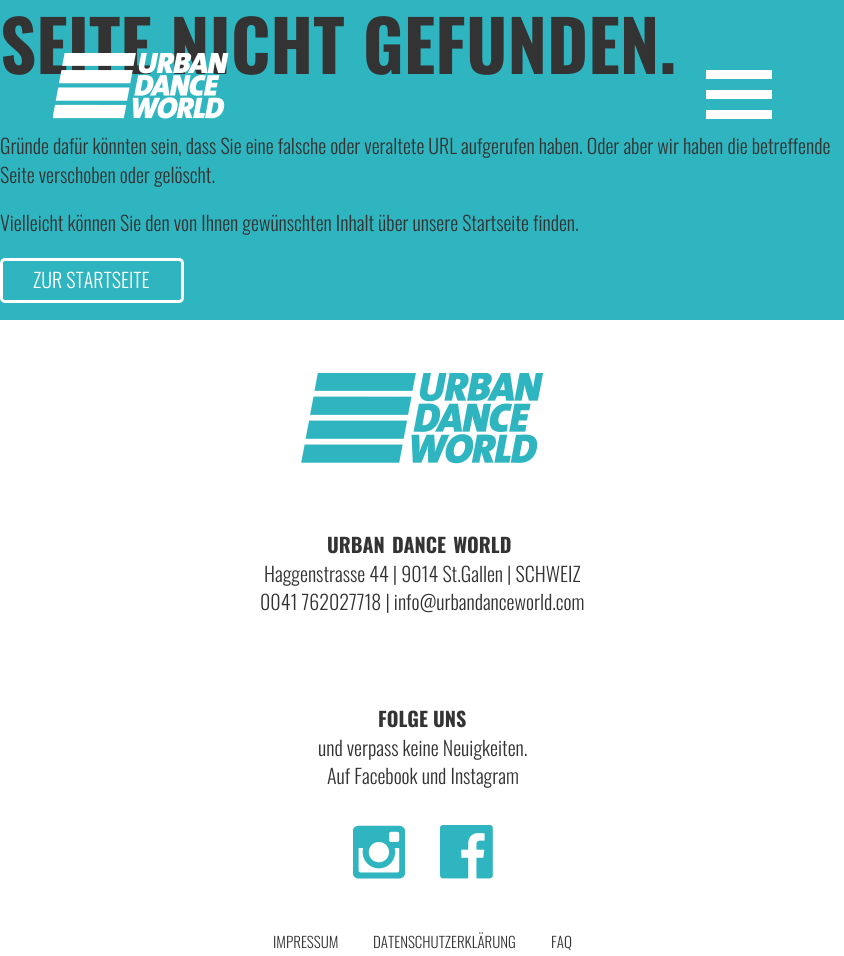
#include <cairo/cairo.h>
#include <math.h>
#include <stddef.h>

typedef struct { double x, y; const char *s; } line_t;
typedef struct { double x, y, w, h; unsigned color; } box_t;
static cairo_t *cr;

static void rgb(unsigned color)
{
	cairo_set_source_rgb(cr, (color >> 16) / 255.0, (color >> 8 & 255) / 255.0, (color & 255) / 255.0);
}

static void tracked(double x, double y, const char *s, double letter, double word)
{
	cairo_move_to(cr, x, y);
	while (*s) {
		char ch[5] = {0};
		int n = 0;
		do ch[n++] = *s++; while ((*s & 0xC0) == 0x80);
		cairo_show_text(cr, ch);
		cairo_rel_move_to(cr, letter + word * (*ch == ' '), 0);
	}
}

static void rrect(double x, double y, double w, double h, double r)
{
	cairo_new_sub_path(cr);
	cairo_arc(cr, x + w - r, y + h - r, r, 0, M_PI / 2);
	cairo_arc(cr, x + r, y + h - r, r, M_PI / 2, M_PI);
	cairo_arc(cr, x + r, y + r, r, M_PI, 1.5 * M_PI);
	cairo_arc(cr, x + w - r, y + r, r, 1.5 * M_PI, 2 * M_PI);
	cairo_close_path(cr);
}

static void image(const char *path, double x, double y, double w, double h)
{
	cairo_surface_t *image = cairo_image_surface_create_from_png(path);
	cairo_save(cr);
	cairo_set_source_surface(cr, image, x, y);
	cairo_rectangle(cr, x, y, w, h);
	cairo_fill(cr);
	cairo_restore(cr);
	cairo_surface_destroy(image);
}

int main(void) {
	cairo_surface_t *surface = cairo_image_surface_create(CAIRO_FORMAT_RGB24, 844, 956);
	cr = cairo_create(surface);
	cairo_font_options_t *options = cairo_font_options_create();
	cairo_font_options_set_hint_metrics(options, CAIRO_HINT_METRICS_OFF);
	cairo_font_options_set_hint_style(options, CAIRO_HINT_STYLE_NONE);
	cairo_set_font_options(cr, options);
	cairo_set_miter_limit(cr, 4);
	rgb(0x2eb5bf);
	cairo_paint(cr);
	rrect(1.5, 259.5, 181, 42, 3.5);
	rgb(0xffffff);
	cairo_set_line_width(cr, 3);
	cairo_stroke(cr);
	{
		static const box_t items[] = {
			{706, 70, 66, 9, 0xffffff},
			{706, 90, 66, 9, 0xffffff},
			{706, 110, 66, 9, 0xffffff},
			{0, 320, 844, 636, 0xffffff},
		};
		for (size_t i = 0; i < sizeof items / sizeof *items; i++) {
			rgb(items[i].color);
			cairo_rectangle(cr, items[i].x, items[i].y, items[i].w, items[i].h);
			cairo_fill(cr);
		}
	}
	image("img/2.png", 301, 373, 243, 91);
	image("img/3.png", 353, 825, 52, 54);
	image("img/4.png", 440, 825, 53, 54);
	cairo_select_font_face(cr, "Oswald", CAIRO_FONT_SLANT_NORMAL, CAIRO_FONT_WEIGHT_BOLD);
	cairo_set_font_size(cr, 70.5);
	rgb(0x333333);
	cairo_move_to(cr, 0, 74);
	cairo_show_text(cr, "SEITE NICHT GEFUNDEN.");
	cairo_select_font_face(cr, "Oswald Light", CAIRO_FONT_SLANT_NORMAL, CAIRO_FONT_WEIGHT_NORMAL);
	cairo_set_font_size(cr, 20);
	{
		static const line_t items[] = {
			{0, 154, "Gründe dafür könnten sein, dass Sie eine falsche oder veraltete URL aufgerufen haben. Oder aber wir haben die betreffende"},
			{0, 183, "Seite verschoben oder gelöscht."},
			{0, 231, "Vielleicht können Sie den von Ihnen gewünschten Inhalt über unsere Startseite finden."},
		};
		for (size_t i = 0; i < sizeof items / sizeof *items; i++) {
			cairo_move_to(cr, items[i].x, items[i].y);
			cairo_show_text(cr, items[i].s);
		}
	}
	rgb(0xffffff);
	cairo_move_to(cr, 33, 288);
	cairo_show_text(cr, "ZUR STARTSEITE");
	image("img/1.png", 53, 53, 176, 66);
	cairo_select_font_face(cr, "Oswald", CAIRO_FONT_SLANT_NORMAL, CAIRO_FONT_WEIGHT_BOLD);
	rgb(0x333333);
	tracked(327, 553, "URBAN DANCE WORLD", 0, 2);
	cairo_select_font_face(cr, "Oswald Light", CAIRO_FONT_SLANT_NORMAL, CAIRO_FONT_WEIGHT_NORMAL);
	cairo_move_to(cr, 264, 582);
	cairo_show_text(cr, "Haggenstrasse 44 | 9014 St.Gallen | SCHWEIZ");
	cairo_move_to(cr, 260, 610);
	cairo_show_text(cr, "0041 762027718 | info@urbandanceworld.com");
	cairo_select_font_face(cr, "Oswald", CAIRO_FONT_SLANT_NORMAL, CAIRO_FONT_WEIGHT_BOLD);
	cairo_move_to(cr, 378, 727);
	cairo_show_text(cr, "FOLGE UNS");
	cairo_select_font_face(cr, "Oswald Light", CAIRO_FONT_SLANT_NORMAL, CAIRO_FONT_WEIGHT_NORMAL);
	cairo_move_to(cr, 318, 756);
	cairo_show_text(cr, "und verpass keine Neuigkeiten.");
	cairo_move_to(cr, 327, 784);
	cairo_show_text(cr, "Auf Facebook und Instagram");
	cairo_set_font_size(cr, 15);
	{
		static const line_t items[] = {
			{273, 948, "IMPRESSUM"},
			{373, 948, "DATENSCHUTZERKLÄRUNG"},
			{551, 948, "FAQ"},
		};
		for (size_t i = 0; i < sizeof items / sizeof *items; i++) {
			cairo_move_to(cr, items[i].x, items[i].y);
			cairo_show_text(cr, items[i].s);
		}
	}
	cairo_surface_write_to_png(surface, "page.png");
	cairo_font_options_destroy(options);
	cairo_destroy(cr);
	cairo_surface_destroy(surface);
	return 0;
}
